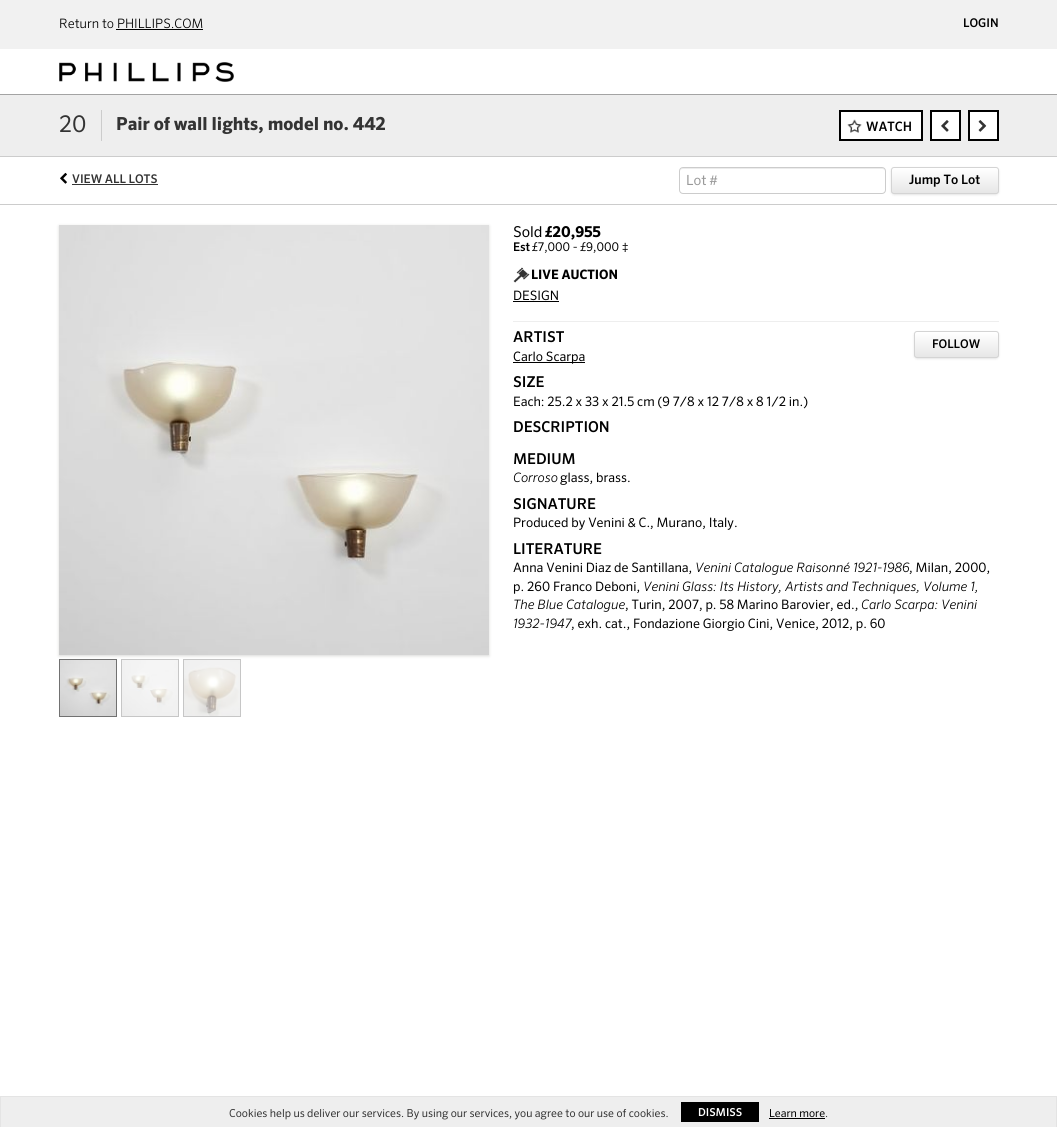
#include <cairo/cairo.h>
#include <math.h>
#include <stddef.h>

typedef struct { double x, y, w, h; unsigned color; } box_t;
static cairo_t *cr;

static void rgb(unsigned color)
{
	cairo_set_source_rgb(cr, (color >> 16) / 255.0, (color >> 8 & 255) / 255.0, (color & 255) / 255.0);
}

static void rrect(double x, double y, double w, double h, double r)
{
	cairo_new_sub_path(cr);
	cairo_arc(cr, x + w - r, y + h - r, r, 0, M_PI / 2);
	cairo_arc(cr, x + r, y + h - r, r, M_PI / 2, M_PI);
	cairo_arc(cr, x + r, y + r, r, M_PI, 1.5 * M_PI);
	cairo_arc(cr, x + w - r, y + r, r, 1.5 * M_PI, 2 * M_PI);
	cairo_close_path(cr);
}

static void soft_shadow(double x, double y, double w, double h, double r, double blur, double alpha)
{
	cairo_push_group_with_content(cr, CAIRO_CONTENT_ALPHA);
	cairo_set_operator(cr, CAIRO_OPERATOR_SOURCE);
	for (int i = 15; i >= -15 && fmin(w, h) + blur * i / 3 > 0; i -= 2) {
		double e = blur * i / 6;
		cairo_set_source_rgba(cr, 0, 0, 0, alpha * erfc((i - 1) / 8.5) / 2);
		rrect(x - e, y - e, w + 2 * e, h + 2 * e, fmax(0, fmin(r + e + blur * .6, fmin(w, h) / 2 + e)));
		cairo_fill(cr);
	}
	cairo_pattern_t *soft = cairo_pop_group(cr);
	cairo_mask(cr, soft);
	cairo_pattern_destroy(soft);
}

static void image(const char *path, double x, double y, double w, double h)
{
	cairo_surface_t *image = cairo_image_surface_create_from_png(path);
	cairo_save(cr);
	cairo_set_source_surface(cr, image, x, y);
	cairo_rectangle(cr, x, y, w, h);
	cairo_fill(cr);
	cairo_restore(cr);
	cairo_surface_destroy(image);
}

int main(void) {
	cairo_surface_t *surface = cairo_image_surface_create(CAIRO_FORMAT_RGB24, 1057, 1127);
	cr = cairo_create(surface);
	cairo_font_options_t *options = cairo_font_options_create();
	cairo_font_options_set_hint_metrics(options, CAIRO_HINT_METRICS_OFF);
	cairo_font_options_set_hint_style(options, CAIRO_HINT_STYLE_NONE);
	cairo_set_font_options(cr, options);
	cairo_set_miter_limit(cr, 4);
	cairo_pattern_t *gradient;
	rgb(0xffffff);
	cairo_paint(cr);
	{
		static const box_t items[] = {
			{0, 94, 1057, 1, 0xa3a3a3},
			{0, 0, 1057, 49, 0xf1f1f1},
			{116, 29, 87, 1, 0x000000},
		};
		for (size_t i = 0; i < sizeof items / sizeof *items; i++) {
			rgb(items[i].color);
			cairo_rectangle(cr, items[i].x, items[i].y, items[i].w, items[i].h);
			cairo_fill(cr);
		}
	}
	image("img/1.png", 59, 62, 175, 20);
	{
		static const box_t items[] = {
			{0, 95, 1057, 61, 0xeeeeee},
			{0, 156, 1057, 1, 0xcccccc},
			{101, 110, 1, 31, 0xcccccc},
		};
		for (size_t i = 0; i < sizeof items / sizeof *items; i++) {
			rgb(items[i].color);
			cairo_rectangle(cr, items[i].x, items[i].y, items[i].w, items[i].h);
			cairo_fill(cr);
		}
	}
	rgb(0xffffff);
	cairo_rectangle(cr, 840, 111, 82, 29);
	cairo_fill_preserve(cr);
	rgb(0x000000);
	cairo_stroke(cr);
	image("img/2.png", 847, 119, 15, 14);
	rgb(0xffffff);
	cairo_rectangle(cr, 931, 111, 29, 29);
	cairo_fill_preserve(cr);
	rgb(0x000000);
	cairo_stroke(cr);
	image("img/3.png", 941, 120, 8, 12);
	rgb(0xffffff);
	cairo_rectangle(cr, 969, 111, 29, 29);
	cairo_fill_preserve(cr);
	rgb(0x000000);
	cairo_stroke(cr);
	image("img/4.png", 978, 120, 9, 12);
	image("img/5.png", 60, 172, 7, 12);
	rgb(0x333333);
	cairo_rectangle(cr, 72, 184, 86, 1);
	cairo_fill(cr);
	rgb(0xececec);
	cairo_new_path(cr);
	cairo_move_to(cr, 683, 169);
	cairo_line_to(cr, 882, 169);
	cairo_curve_to(cr, 884, 169, 885, 170, 885, 172);
	cairo_curve_to(cr, 885, 170, 884, 168, 882, 168);
	cairo_line_to(cr, 683, 168);
	cairo_curve_to(cr, 681, 168, 680, 170, 680, 172);
	cairo_curve_to(cr, 680, 170, 681, 169, 683, 169);
	cairo_close_path(cr);
	cairo_fill(cr);
	rrect(679.5, 167.5, 206, 26, 3.5);
	rgb(0xcccccc);
	cairo_set_line_width(cr, 1);
	cairo_stroke(cr);
	rgb(0x000000);
	soft_shadow(892, 169, 106, 25, 2, 1.5, 0.2);
	cairo_save(cr);
	rrect(891, 167, 108, 27, 3);
	cairo_clip(cr);
	gradient = cairo_pattern_create_linear(945, 168, 945, 193);
	cairo_pattern_add_color_stop_rgba(gradient, 0, 1, 1, 1, 1);
	cairo_pattern_add_color_stop_rgba(gradient, 1, 0.902, 0.902, 0.902, 1);
	cairo_set_source(cr, gradient);
	cairo_pattern_destroy(gradient);
	cairo_rectangle(cr, 891, 168, 108, 25);
	cairo_fill(cr);
	cairo_restore(cr);
	rrect(891.5, 167.5, 107, 26, 2.5);
	rgb(0xd4d4d4);
	cairo_stroke(cr);
	rgb(0xcccccc);
	cairo_rectangle(cr, 0, 204, 1057, 1);
	cairo_fill(cr);
	rgb(0xdad9d7);
	soft_shadow(59, 226, 430, 430, 0, 1.5, 1);
	image("img/6.png", 59, 225, 430, 430);
	cairo_rectangle(cr, 59.5, 659.5, 57, 57);
	rgb(0x717171);
	cairo_stroke(cr);
	cairo_rectangle(cr, 121.5, 659.5, 57, 57);
	rgb(0xc6c6c6);
	cairo_stroke(cr);
	cairo_rectangle(cr, 183.5, 659.5, 57, 57);
	cairo_stroke(cr);
	image("img/7.png", 60, 660, 56, 56);
	image("img/8.png", 122, 660, 56, 56);
	image("img/9.png", 184, 660, 56, 56);
	image("img/10.png", 513, 267, 17, 16);
	rgb(0x000000);
	cairo_rectangle(cr, 513, 301, 46, 1);
	cairo_fill(cr);
	rgb(0xeeeeee);
	cairo_rectangle(cr, 513, 321, 486, 1);
	cairo_fill(cr);
	rgb(0x000000);
	soft_shadow(915, 333, 83, 25, 2, 1.5, 0.2);
	cairo_save(cr);
	rrect(914, 331, 85, 27, 3);
	cairo_clip(cr);
	gradient = cairo_pattern_create_linear(957, 332, 957, 357);
	cairo_pattern_add_color_stop_rgba(gradient, 0, 1, 1, 1, 1);
	cairo_pattern_add_color_stop_rgba(gradient, 1, 0.902, 0.902, 0.902, 1);
	cairo_set_source(cr, gradient);
	cairo_pattern_destroy(gradient);
	cairo_rectangle(cr, 914, 332, 85, 25);
	cairo_fill(cr);
	cairo_restore(cr);
	cairo_set_source_rgba(cr, 1, 1, 1, 0.4);
	cairo_new_path(cr);
	cairo_move_to(cr, 917, 333);
	cairo_line_to(cr, 996, 333);
	cairo_curve_to(cr, 997, 333, 998, 334, 998, 335);
	cairo_curve_to(cr, 998, 328, 986, 332, 983, 332);
	cairo_line_to(cr, 930, 332);
	cairo_curve_to(cr, 927, 332, 915, 328, 915, 335);
	cairo_curve_to(cr, 915, 334, 916, 333, 917, 333);
	cairo_close_path(cr);
	cairo_fill(cr);
	rrect(914.5, 331.5, 84, 26, 2.5);
	rgb(0xd4d4d4);
	cairo_stroke(cr);
	{
		static const box_t items[] = {
			{513, 362, 72, 1, 0x000000},
			{1, 1097, 1055, 30, 0xeeeeee},
			{0, 1096, 1057, 1, 0xe4e4e4},
			{1056, 1096, 1, 31, 0xe4e4e4},
			{0, 1096, 1, 31, 0xe4e4e4},
			{681, 1102, 78, 20, 0x000000},
			{769, 1118, 56, 1, 0x000000},
		};
		for (size_t i = 0; i < sizeof items / sizeof *items; i++) {
			rgb(items[i].color);
			cairo_rectangle(cr, items[i].x, items[i].y, items[i].w, items[i].h);
			cairo_fill(cr);
		}
	}
	cairo_select_font_face(cr, "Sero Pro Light", CAIRO_FONT_SLANT_NORMAL, CAIRO_FONT_WEIGHT_NORMAL);
	cairo_set_font_size(cr, 13);
	cairo_move_to(cr, 59, 28);
	cairo_show_text(cr, "Return to PHILLIPS.COM");
	cairo_select_font_face(cr, "Sero Pro Medium", CAIRO_FONT_SLANT_NORMAL, CAIRO_FONT_WEIGHT_NORMAL);
	cairo_set_font_size(cr, 12);
	cairo_move_to(cr, 963, 27);
	cairo_show_text(cr, "LOGIN");
	cairo_select_font_face(cr, "Sero Pro", CAIRO_FONT_SLANT_NORMAL, CAIRO_FONT_WEIGHT_NORMAL);
	cairo_set_font_size(cr, 23);
	rgb(0x333333);
	cairo_move_to(cr, 59, 132);
	cairo_show_text(cr, "20");
	cairo_select_font_face(cr, "Sero Pro", CAIRO_FONT_SLANT_NORMAL, CAIRO_FONT_WEIGHT_BOLD);
	cairo_set_font_size(cr, 18);
	cairo_move_to(cr, 116, 130);
	cairo_show_text(cr, "Pair of wall lights, model no. 442");
	cairo_select_font_face(cr, "Sero Pro Medium", CAIRO_FONT_SLANT_NORMAL, CAIRO_FONT_WEIGHT_NORMAL);
	cairo_set_font_size(cr, 13);
	rgb(0x000000);
	cairo_move_to(cr, 866, 131);
	cairo_show_text(cr, "WATCH");
	cairo_set_font_size(cr, 12);
	rgb(0x333333);
	cairo_move_to(cr, 72, 183);
	cairo_show_text(cr, "VIEW ALL LOTS");
	cairo_select_font_face(cr, "Sero Pro", CAIRO_FONT_SLANT_NORMAL, CAIRO_FONT_WEIGHT_NORMAL);
	cairo_set_font_size(cr, 14);
	rgb(0x999999);
	cairo_move_to(cr, 686, 185);
	cairo_show_text(cr, "Lot #");
	cairo_select_font_face(cr, "Sero Pro Medium", CAIRO_FONT_SLANT_NORMAL, CAIRO_FONT_WEIGHT_NORMAL);
	cairo_set_font_size(cr, 13);
	rgb(0x000000);
	cairo_move_to(cr, 909, 184);
	cairo_show_text(cr, "Jump To Lot");
	cairo_select_font_face(cr, "Sero Pro", CAIRO_FONT_SLANT_NORMAL, CAIRO_FONT_WEIGHT_NORMAL);
	cairo_set_font_size(cr, 15);
	cairo_move_to(cr, 513, 237);
	cairo_show_text(cr, "Sold");
	cairo_select_font_face(cr, "Sero Pro", CAIRO_FONT_SLANT_NORMAL, CAIRO_FONT_WEIGHT_BOLD);
	cairo_move_to(cr, 545, 237);
	cairo_show_text(cr, "£20,955");
	cairo_select_font_face(cr, "Sero Pro Medium", CAIRO_FONT_SLANT_NORMAL, CAIRO_FONT_WEIGHT_NORMAL);
	cairo_set_font_size(cr, 12);
	cairo_move_to(cr, 513, 251);
	cairo_show_text(cr, "Est");
	cairo_select_font_face(cr, "Sero Pro", CAIRO_FONT_SLANT_NORMAL, CAIRO_FONT_WEIGHT_NORMAL);
	cairo_move_to(cr, 532, 251);
	cairo_show_text(cr, "£7,000 - £9,000 ‡");
	cairo_select_font_face(cr, "Sero Pro", CAIRO_FONT_SLANT_NORMAL, CAIRO_FONT_WEIGHT_BOLD);
	cairo_set_font_size(cr, 13);
	cairo_move_to(cr, 531, 279);
	cairo_show_text(cr, "LIVE AUCTION");
	cairo_select_font_face(cr, "Sero Pro", CAIRO_FONT_SLANT_NORMAL, CAIRO_FONT_WEIGHT_NORMAL);
	cairo_move_to(cr, 513, 300);
	cairo_show_text(cr, "DESIGN");
	cairo_select_font_face(cr, "Sero Pro Medium", CAIRO_FONT_SLANT_NORMAL, CAIRO_FONT_WEIGHT_NORMAL);
	cairo_set_font_size(cr, 15);
	cairo_move_to(cr, 513, 342);
	cairo_show_text(cr, "ARTIST");
	cairo_set_font_size(cr, 12);
	cairo_move_to(cr, 932, 348);
	cairo_show_text(cr, "FOLLOW");
	cairo_select_font_face(cr, "Sero Pro", CAIRO_FONT_SLANT_NORMAL, CAIRO_FONT_WEIGHT_NORMAL);
	cairo_set_font_size(cr, 13);
	cairo_move_to(cr, 513, 361);
	cairo_show_text(cr, "Carlo Scarpa");
	cairo_select_font_face(cr, "Sero Pro Medium", CAIRO_FONT_SLANT_NORMAL, CAIRO_FONT_WEIGHT_NORMAL);
	cairo_set_font_size(cr, 15);
	cairo_move_to(cr, 513, 387);
	cairo_show_text(cr, "SIZE");
	cairo_select_font_face(cr, "Sero Pro", CAIRO_FONT_SLANT_NORMAL, CAIRO_FONT_WEIGHT_NORMAL);
	cairo_set_font_size(cr, 13);
	cairo_move_to(cr, 513, 406);
	cairo_show_text(cr, "Each: 25.2 x 33 x 21.5 cm (9 7/8 x 12 7/8 x 8 1/2 in.)");
	cairo_select_font_face(cr, "Sero Pro Medium", CAIRO_FONT_SLANT_NORMAL, CAIRO_FONT_WEIGHT_NORMAL);
	cairo_set_font_size(cr, 15);
	cairo_move_to(cr, 513, 432);
	cairo_show_text(cr, "DESCRIPTION");
	cairo_move_to(cr, 513, 464);
	cairo_show_text(cr, "MEDIUM");
	cairo_select_font_face(cr, "Sero Pro Light", CAIRO_FONT_SLANT_ITALIC, CAIRO_FONT_WEIGHT_NORMAL);
	cairo_set_font_size(cr, 13);
	cairo_move_to(cr, 513, 482);
	cairo_show_text(cr, "Corroso");
	cairo_select_font_face(cr, "Sero Pro", CAIRO_FONT_SLANT_NORMAL, CAIRO_FONT_WEIGHT_NORMAL);
	cairo_move_to(cr, 560, 482);
	cairo_show_text(cr, "glass, brass.");
	cairo_select_font_face(cr, "Sero Pro Medium", CAIRO_FONT_SLANT_NORMAL, CAIRO_FONT_WEIGHT_NORMAL);
	cairo_set_font_size(cr, 15);
	cairo_move_to(cr, 513, 509);
	cairo_show_text(cr, "SIGNATURE");
	cairo_select_font_face(cr, "Sero Pro", CAIRO_FONT_SLANT_NORMAL, CAIRO_FONT_WEIGHT_NORMAL);
	cairo_set_font_size(cr, 13);
	cairo_move_to(cr, 513, 527);
	cairo_show_text(cr, "Produced by Venini & C., Murano, Italy.");
	cairo_select_font_face(cr, "Sero Pro Medium", CAIRO_FONT_SLANT_NORMAL, CAIRO_FONT_WEIGHT_NORMAL);
	cairo_set_font_size(cr, 15);
	cairo_move_to(cr, 513, 554);
	cairo_show_text(cr, "LITERATURE");
	cairo_select_font_face(cr, "Sero Pro", CAIRO_FONT_SLANT_NORMAL, CAIRO_FONT_WEIGHT_NORMAL);
	cairo_set_font_size(cr, 13);
	cairo_move_to(cr, 513, 572);
	cairo_show_text(cr, "Anna Venini Diaz de Santillana,");
	cairo_select_font_face(cr, "Sero Pro Light", CAIRO_FONT_SLANT_ITALIC, CAIRO_FONT_WEIGHT_NORMAL);
	cairo_move_to(cr, 695, 572);
	cairo_show_text(cr, "Venini Catalogue Raisonné 1921-1986");
	cairo_select_font_face(cr, "Sero Pro", CAIRO_FONT_SLANT_NORMAL, CAIRO_FONT_WEIGHT_NORMAL);
	cairo_move_to(cr, 909, 572);
	cairo_show_text(cr, ", Milan, 2000,");
	cairo_move_to(cr, 513, 591);
	cairo_show_text(cr, "p. 260 Franco Deboni,");
	cairo_select_font_face(cr, "Sero Pro Light", CAIRO_FONT_SLANT_ITALIC, CAIRO_FONT_WEIGHT_NORMAL);
	cairo_move_to(cr, 643, 591);
	cairo_show_text(cr, "Venini Glass: Its History, Artists and Techniques, Volume 1,");
	cairo_move_to(cr, 513, 609);
	cairo_show_text(cr, "The Blue Catalogue");
	cairo_select_font_face(cr, "Sero Pro", CAIRO_FONT_SLANT_NORMAL, CAIRO_FONT_WEIGHT_NORMAL);
	cairo_move_to(cr, 625, 609);
	cairo_show_text(cr, ", Turin, 2007, p. 58 Marino Barovier, ed.,");
	cairo_select_font_face(cr, "Sero Pro Light", CAIRO_FONT_SLANT_ITALIC, CAIRO_FONT_WEIGHT_NORMAL);
	cairo_move_to(cr, 861, 609);
	cairo_show_text(cr, "Carlo Scarpa: Venini");
	cairo_move_to(cr, 513, 628);
	cairo_show_text(cr, "1932-1947");
	cairo_select_font_face(cr, "Sero Pro", CAIRO_FONT_SLANT_NORMAL, CAIRO_FONT_WEIGHT_NORMAL);
	cairo_move_to(cr, 571, 628);
	cairo_show_text(cr, ", exh. cat., Fondazione Giorgio Cini, Venice, 2012, p. 60");
	cairo_set_font_size(cr, 11);
	rgb(0x333333);
	cairo_move_to(cr, 229, 1117);
	cairo_show_text(cr, "Cookies help us deliver our services. By using our services, you agree to our use of cookies.");
	cairo_select_font_face(cr, "Sero Pro Medium", CAIRO_FONT_SLANT_NORMAL, CAIRO_FONT_WEIGHT_NORMAL);
	rgb(0xffffff);
	cairo_move_to(cr, 698, 1116);
	cairo_show_text(cr, "DISMISS");
	cairo_select_font_face(cr, "Sero Pro", CAIRO_FONT_SLANT_NORMAL, CAIRO_FONT_WEIGHT_NORMAL);
	rgb(0x000000);
	cairo_move_to(cr, 769, 1117);
	cairo_show_text(cr, "Learn more");
	rgb(0x333333);
	cairo_move_to(cr, 825, 1117);
	cairo_show_text(cr, ".");
	cairo_surface_write_to_png(surface, "page.png");
	cairo_font_options_destroy(options);
	cairo_destroy(cr);
	cairo_surface_destroy(surface);
	return 0;
}
